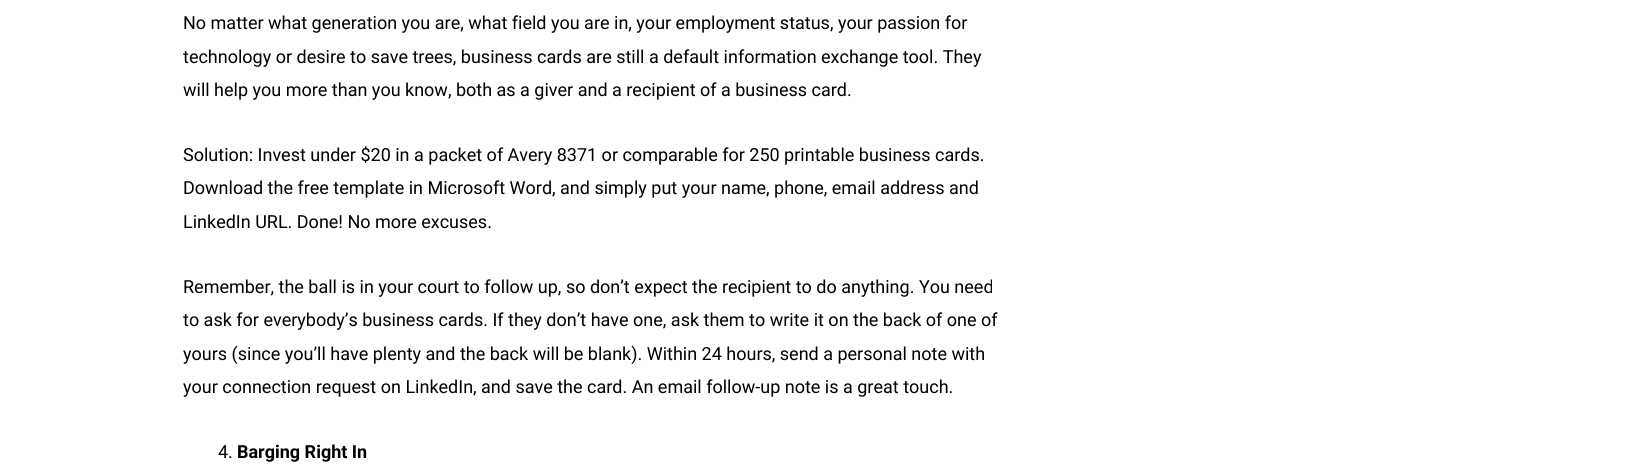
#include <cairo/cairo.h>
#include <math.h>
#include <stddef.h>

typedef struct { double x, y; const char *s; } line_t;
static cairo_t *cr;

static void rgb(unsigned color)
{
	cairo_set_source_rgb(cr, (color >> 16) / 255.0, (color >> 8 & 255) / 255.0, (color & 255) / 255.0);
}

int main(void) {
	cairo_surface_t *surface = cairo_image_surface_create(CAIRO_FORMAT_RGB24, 1626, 476);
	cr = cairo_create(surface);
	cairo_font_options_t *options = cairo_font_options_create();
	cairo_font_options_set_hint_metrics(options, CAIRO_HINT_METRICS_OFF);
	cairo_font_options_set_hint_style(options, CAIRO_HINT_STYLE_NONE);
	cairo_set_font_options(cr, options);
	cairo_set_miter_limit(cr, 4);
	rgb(0xffffff);
	cairo_paint(cr);
	cairo_select_font_face(cr, "Roboto", CAIRO_FONT_SLANT_NORMAL, CAIRO_FONT_WEIGHT_NORMAL);
	cairo_set_font_size(cr, 18);
	rgb(0x000000);
	{
		static const line_t items[] = {
			{183, 29, "No matter what generation you are, what field you are in, your employment status, your passion for"},
			{183, 63, "technology or desire to save trees, business cards are still a default information exchange tool. They"},
			{183, 96, "will help you more than you know, both as a giver and a recipient of a business card."},
			{183, 161, "Solution: Invest under $20 in a packet of Avery 8371 or comparable for 250 printable business cards."},
			{183, 194, "Download the free template in Microsoft Word, and simply put your name, phone, email address and"},
			{183, 228, "LinkedIn URL. Done! No more excuses."},
			{183, 293, "Remember, the ball is in your court to follow up, so don’t expect the recipient to do anything. You need"},
			{183, 326, "to ask for everybody’s business cards. If they don’t have one, ask them to write it on the back of one of"},
			{183, 360, "yours (since you’ll have plenty and the back will be blank). Within 24 hours, send a personal note with"},
			{183, 393, "your connection request on LinkedIn, and save the card. An email follow-up note is a great touch."},
			{218, 458, "4."},
		};
		for (size_t i = 0; i < sizeof items / sizeof *items; i++) {
			cairo_move_to(cr, items[i].x, items[i].y);
			cairo_show_text(cr, items[i].s);
		}
	}
	cairo_select_font_face(cr, "Roboto", CAIRO_FONT_SLANT_NORMAL, CAIRO_FONT_WEIGHT_BOLD);
	cairo_move_to(cr, 237, 458);
	cairo_show_text(cr, "Barging Right In");
	cairo_surface_write_to_png(surface, "page.png");
	cairo_font_options_destroy(options);
	cairo_destroy(cr);
	cairo_surface_destroy(surface);
	return 0;
}
